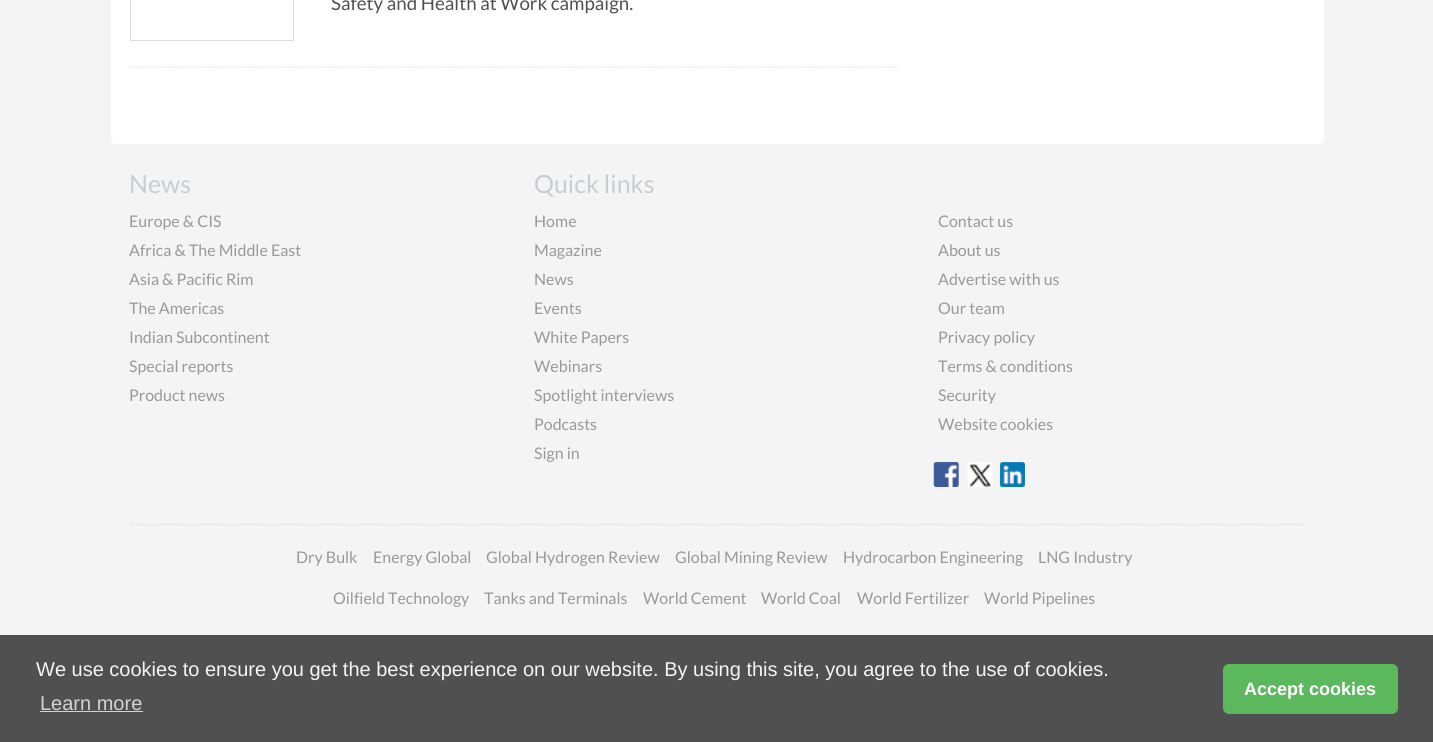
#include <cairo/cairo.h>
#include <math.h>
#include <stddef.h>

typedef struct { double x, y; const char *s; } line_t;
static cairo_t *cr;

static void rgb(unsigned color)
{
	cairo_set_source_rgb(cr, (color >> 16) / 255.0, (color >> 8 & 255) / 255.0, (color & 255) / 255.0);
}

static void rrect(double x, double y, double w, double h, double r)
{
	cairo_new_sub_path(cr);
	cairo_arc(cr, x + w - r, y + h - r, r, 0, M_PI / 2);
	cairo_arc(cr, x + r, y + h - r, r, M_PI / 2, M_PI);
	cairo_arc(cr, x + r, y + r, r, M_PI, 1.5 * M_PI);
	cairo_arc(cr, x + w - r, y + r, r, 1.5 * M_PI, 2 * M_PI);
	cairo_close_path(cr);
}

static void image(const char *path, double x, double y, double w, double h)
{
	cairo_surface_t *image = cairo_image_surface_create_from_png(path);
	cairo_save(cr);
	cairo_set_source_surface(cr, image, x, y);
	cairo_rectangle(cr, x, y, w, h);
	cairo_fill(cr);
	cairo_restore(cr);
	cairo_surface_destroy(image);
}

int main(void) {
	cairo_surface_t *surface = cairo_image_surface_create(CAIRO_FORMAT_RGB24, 1433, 742);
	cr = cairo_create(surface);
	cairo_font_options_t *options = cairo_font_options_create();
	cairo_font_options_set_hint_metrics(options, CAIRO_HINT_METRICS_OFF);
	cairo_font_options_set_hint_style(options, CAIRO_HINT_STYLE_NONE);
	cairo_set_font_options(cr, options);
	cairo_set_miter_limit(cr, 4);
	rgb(0xf4f4f4);
	cairo_paint(cr);
	rgb(0xffffff);
	rrect(111, -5, 1213, 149, 5);
	cairo_fill(cr);
	cairo_rectangle(cr, 130.5, -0.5, 163, 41);
	rgb(0xdddddd);
	cairo_set_line_width(cr, 1);
	cairo_stroke(cr);
	cairo_new_path(cr);
	cairo_move_to(cr, 130, 67);
	cairo_line_to(cr, 900, 67);
	cairo_set_line_width(cr, 1.2);
	cairo_set_dash(cr, (double[]){1.25, 1.25}, 2, 0);
	cairo_stroke(cr);
	image("img/1.png", 933, 462, 26, 25);
	image("img/2.png", 967, 462, 26, 25);
	image("img/3.png", 1000, 462, 25, 25);
	cairo_new_path(cr);
	cairo_move_to(cr, 130, 524.5);
	cairo_line_to(cr, 1305, 524.5);
	cairo_stroke(cr);
	rgb(0x505050);
	cairo_rectangle(cr, 0, 635, 1433, 107);
	cairo_fill(cr);
	rgb(0xd3d3d3);
	cairo_rectangle(cr, 40, 711, 103, 1);
	cairo_fill(cr);
	rgb(0x5cb85c);
	rrect(1223, 664, 175, 50, 6);
	cairo_fill(cr);
	cairo_select_font_face(cr, "Lato", CAIRO_FONT_SLANT_NORMAL, CAIRO_FONT_WEIGHT_NORMAL);
	cairo_set_font_size(cr, 18.75);
	rgb(0x505050);
	cairo_move_to(cr, 331, 10);
	cairo_show_text(cr, "Safety and Health at Work campaign.");
	cairo_set_font_size(cr, 25);
	rgb(0xc9cdd1);
	cairo_move_to(cr, 129, 193);
	cairo_show_text(cr, "News");
	cairo_set_font_size(cr, 16);
	rgb(0x999999);
	{
		static const line_t items[] = {
			{129, 227, "Europe & CIS"},
			{129, 256, "Africa & The Middle East"},
			{129, 285, "Asia & Pacific Rim"},
			{129, 314, "The Americas"},
			{129, 343, "Indian Subcontinent"},
			{129, 372, "Special reports"},
			{129, 401, "Product news"},
		};
		for (size_t i = 0; i < sizeof items / sizeof *items; i++) {
			cairo_move_to(cr, items[i].x, items[i].y);
			cairo_show_text(cr, items[i].s);
		}
	}
	cairo_set_font_size(cr, 25);
	rgb(0xc9cdd1);
	cairo_move_to(cr, 534, 193);
	cairo_show_text(cr, "Quick links");
	cairo_set_font_size(cr, 16);
	rgb(0x999999);
	{
		static const line_t items[] = {
			{534, 227, "Home"},
			{534, 256, "Magazine"},
			{534, 285, "News"},
			{534, 314, "Events"},
			{534, 343, "White Papers"},
			{534, 372, "Webinars"},
			{534, 401, "Spotlight interviews"},
			{534, 430, "Podcasts"},
			{534, 459, "Sign in"},
			{938, 227, "Contact us"},
			{938, 256, "About us"},
			{938, 285, "Advertise with us"},
			{938, 314, "Our team"},
			{938, 343, "Privacy policy"},
			{938, 372, "Terms & conditions"},
			{938, 401, "Security"},
			{938, 430, "Website cookies"},
			{296, 563, "Dry Bulk"},
			{373, 563, "Energy Global"},
			{486, 563, "Global Hydrogen Review"},
			{675, 563, "Global Mining Review"},
			{843, 563, "Hydrocarbon Engineering"},
			{1038, 563, "LNG Industry"},
			{333, 604, "Oilfield Technology"},
			{484, 604, "Tanks and Terminals"},
			{643, 604, "World Cement"},
			{761, 604, "World Coal"},
			{857, 604, "World Fertilizer"},
			{984, 604, "World Pipelines"},
		};
		for (size_t i = 0; i < sizeof items / sizeof *items; i++) {
			cairo_move_to(cr, items[i].x, items[i].y);
			cairo_show_text(cr, items[i].s);
		}
	}
	cairo_select_font_face(cr, "Liberation Sans", CAIRO_FONT_SLANT_NORMAL, CAIRO_FONT_WEIGHT_NORMAL);
	cairo_set_font_size(cr, 20);
	rgb(0xf4f4f4);
	cairo_move_to(cr, 36, 676);
	cairo_show_text(cr, "We use cookies to ensure you get the best experience on our website. By using this site, you agree to the use of cookies.");
	rgb(0xd3d3d3);
	cairo_move_to(cr, 40, 710);
	cairo_show_text(cr, "Learn more");
	cairo_select_font_face(cr, "Liberation Sans", CAIRO_FONT_SLANT_NORMAL, CAIRO_FONT_WEIGHT_BOLD);
	cairo_set_font_size(cr, 18);
	rgb(0xffffff);
	cairo_move_to(cr, 1244, 695);
	cairo_show_text(cr, "Accept cookies");
	cairo_surface_write_to_png(surface, "page.png");
	cairo_font_options_destroy(options);
	cairo_destroy(cr);
	cairo_surface_destroy(surface);
	return 0;
}
